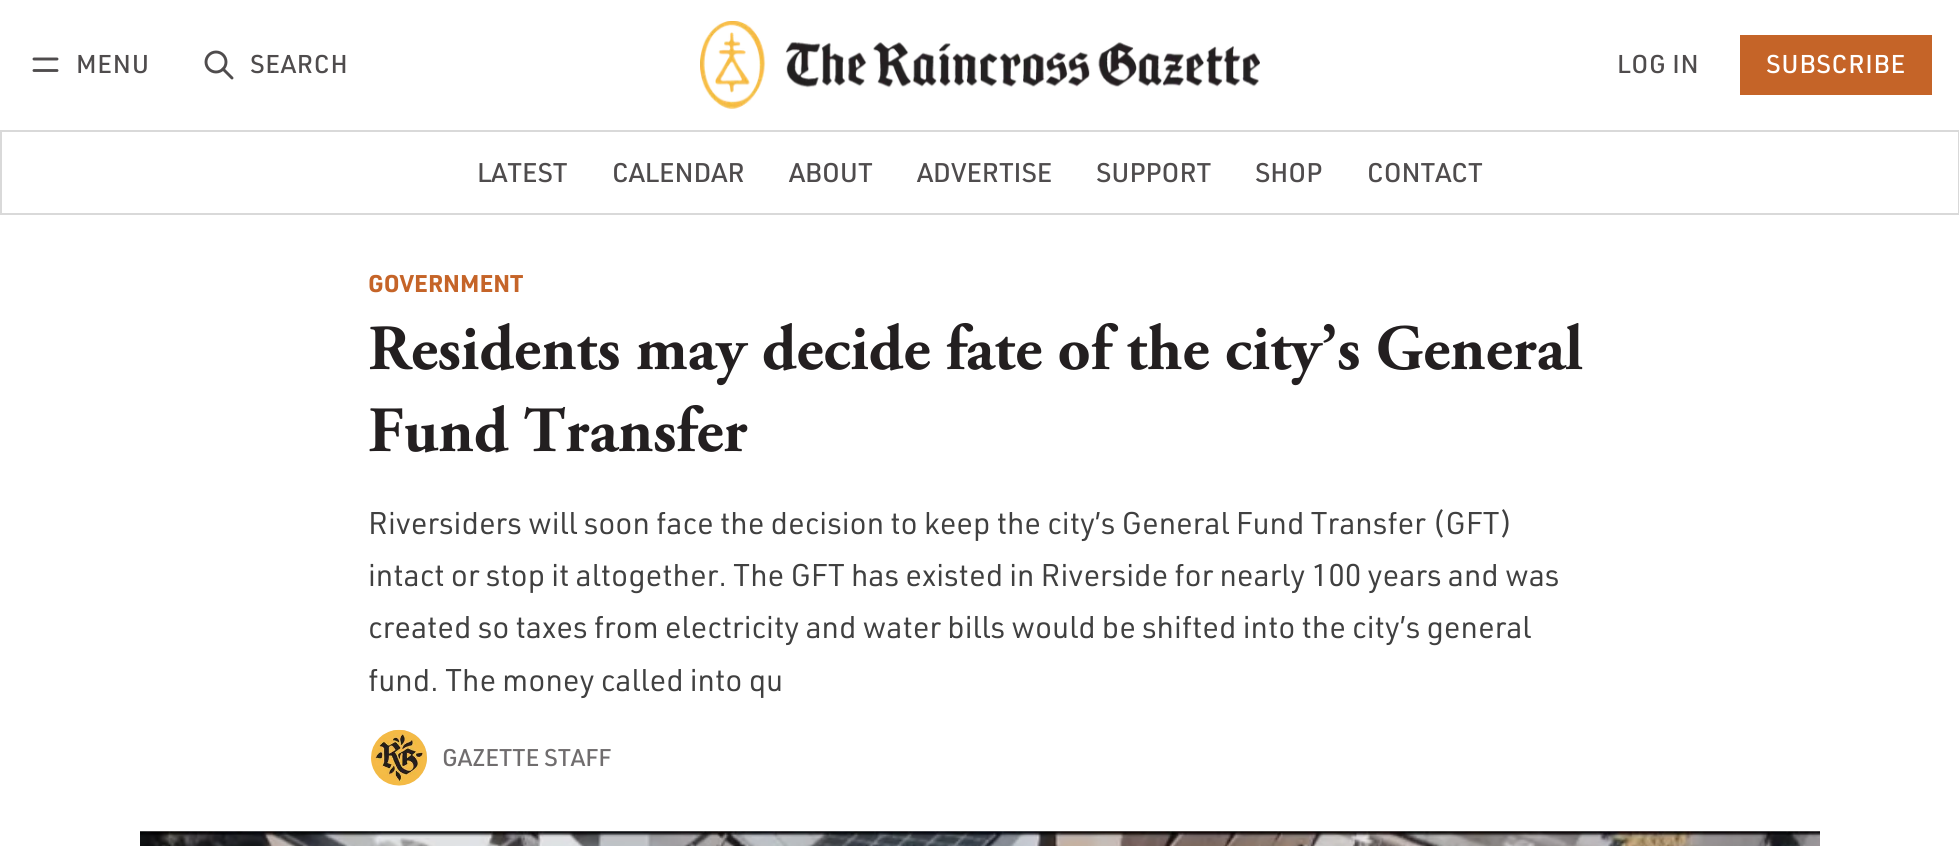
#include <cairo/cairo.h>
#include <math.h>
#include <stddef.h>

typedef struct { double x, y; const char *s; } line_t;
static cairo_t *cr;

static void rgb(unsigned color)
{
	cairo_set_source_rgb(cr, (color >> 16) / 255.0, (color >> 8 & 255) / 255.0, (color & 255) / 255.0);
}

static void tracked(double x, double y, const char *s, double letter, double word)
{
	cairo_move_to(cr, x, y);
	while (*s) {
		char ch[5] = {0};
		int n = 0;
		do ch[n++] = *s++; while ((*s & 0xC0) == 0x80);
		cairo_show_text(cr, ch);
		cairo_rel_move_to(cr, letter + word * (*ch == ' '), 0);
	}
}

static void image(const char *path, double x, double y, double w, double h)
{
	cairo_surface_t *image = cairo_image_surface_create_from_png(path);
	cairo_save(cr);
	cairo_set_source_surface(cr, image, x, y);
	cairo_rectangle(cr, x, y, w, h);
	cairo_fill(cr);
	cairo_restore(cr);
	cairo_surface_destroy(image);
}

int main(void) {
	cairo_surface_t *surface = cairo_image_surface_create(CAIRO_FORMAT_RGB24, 1959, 846);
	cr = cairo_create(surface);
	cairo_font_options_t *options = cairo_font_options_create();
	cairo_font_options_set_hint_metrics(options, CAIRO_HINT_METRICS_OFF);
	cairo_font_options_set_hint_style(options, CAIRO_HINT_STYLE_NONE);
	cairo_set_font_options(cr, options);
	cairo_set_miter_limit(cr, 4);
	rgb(0xffffff);
	cairo_paint(cr);
	cairo_new_path(cr);
	cairo_move_to(cr, 34, 59);
	cairo_line_to(cr, 57, 59);
	cairo_move_to(cr, 34, 70.5);
	cairo_line_to(cr, 57, 70.5);
	rgb(0x4f4c4d);
	cairo_set_line_width(cr, 2.9);
	cairo_set_line_cap(cr, CAIRO_LINE_CAP_ROUND);
	cairo_set_line_join(cr, CAIRO_LINE_JOIN_ROUND);
	cairo_stroke(cr);
	cairo_arc(cr, 216, 62, 10, 0, 2 * M_PI);
	cairo_set_line_cap(cr, CAIRO_LINE_CAP_BUTT);
	cairo_set_line_join(cr, CAIRO_LINE_JOIN_MITER);
	cairo_stroke(cr);
	cairo_new_path(cr);
	cairo_move_to(cr, 232, 78);
	cairo_line_to(cr, 223, 69);
	cairo_set_line_cap(cr, CAIRO_LINE_CAP_ROUND);
	cairo_set_line_join(cr, CAIRO_LINE_JOIN_ROUND);
	cairo_stroke(cr);
	image("img/1.png", 700, 21, 560, 88);
	rgb(0xc56428);
	cairo_rectangle(cr, 1740, 35, 192, 60);
	cairo_fill(cr);
	cairo_rectangle(cr, 1, 131, 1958, 83);
	rgb(0xd9d9d9);
	cairo_set_line_width(cr, 2);
	cairo_set_line_cap(cr, CAIRO_LINE_CAP_BUTT);
	cairo_set_line_join(cr, CAIRO_LINE_JOIN_MITER);
	cairo_stroke(cr);
	cairo_arc(cr, 399.5, 757.5, 29.5, 0, 2 * M_PI);
	cairo_fill_preserve(cr);
	rgb(0xffffff);
	cairo_set_line_width(cr, 4);
	cairo_stroke(cr);
	image("img/2.png", 371, 729, 56, 57);
	image("img/3.png", 140, 831, 1680, 15);
	cairo_select_font_face(cr, "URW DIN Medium", CAIRO_FONT_SLANT_NORMAL, CAIRO_FONT_WEIGHT_NORMAL);
	cairo_set_font_size(cr, 25.25);
	rgb(0x4f4c4d);
	{
		static const line_t items[] = {
			{76, 73, "MENU"},
			{250, 73, "SEARCH"},
			{1617, 73, "LOG IN"},
		};
		for (size_t i = 0; i < sizeof items / sizeof *items; i++) {
			tracked(items[i].x, items[i].y, items[i].s, 0.75, 0);
		}
	}
	rgb(0xffffff);
	tracked(1766, 73, "SUBSCRIBE", 0.75, 0);
	cairo_set_font_size(cr, 26.5);
	rgb(0x4f4c4d);
	{
		static const line_t items[] = {
			{477, 182, "LATEST"},
			{612, 182, "CALENDAR"},
			{789, 182, "ABOUT"},
			{917, 182, "ADVERTISE"},
			{1096, 182, "SUPPORT"},
			{1255, 182, "SHOP"},
			{1367, 182, "CONTACT"},
		};
		for (size_t i = 0; i < sizeof items / sizeof *items; i++) {
			cairo_move_to(cr, items[i].x, items[i].y);
			cairo_show_text(cr, items[i].s);
		}
	}
	cairo_select_font_face(cr, "URW DIN", CAIRO_FONT_SLANT_NORMAL, CAIRO_FONT_WEIGHT_BOLD);
	cairo_set_font_size(cr, 23.75);
	rgb(0xc56428);
	cairo_move_to(cr, 368, 292);
	cairo_show_text(cr, "GOVERNMENT");
	cairo_select_font_face(cr, "Adobe Garamond", CAIRO_FONT_SLANT_NORMAL, CAIRO_FONT_WEIGHT_BOLD);
	cairo_set_font_size(cr, 64.4);
	rgb(0x231f20);
	cairo_move_to(cr, 368, 369);
	cairo_show_text(cr, "Residents may decide fate of the city’s General");
	cairo_move_to(cr, 368, 451);
	cairo_show_text(cr, "Fund Transfer");
	cairo_select_font_face(cr, "URW DIN", CAIRO_FONT_SLANT_NORMAL, CAIRO_FONT_WEIGHT_NORMAL);
	cairo_set_font_size(cr, 30.8);
	rgb(0x404040);
	{
		static const line_t items[] = {
			{368, 534, "Riversiders will soon face the decision to keep the city’s General Fund Transfer (GFT)"},
			{368, 586, "intact or stop it altogether. The GFT has existed in Riverside for nearly 100 years and was"},
			{368, 638, "created so taxes from electricity and water bills would be shifted into the city’s general"},
			{368, 691, "fund. The money called into qu"},
		};
		for (size_t i = 0; i < sizeof items / sizeof *items; i++) {
			cairo_move_to(cr, items[i].x, items[i].y);
			cairo_show_text(cr, items[i].s);
		}
	}
	cairo_select_font_face(cr, "URW DIN Medium", CAIRO_FONT_SLANT_NORMAL, CAIRO_FONT_WEIGHT_NORMAL);
	cairo_set_font_size(cr, 23.75);
	rgb(0x706d6e);
	cairo_move_to(cr, 442, 766);
	cairo_show_text(cr, "GAZETTE STAFF");
	cairo_surface_write_to_png(surface, "page.png");
	cairo_font_options_destroy(options);
	cairo_destroy(cr);
	cairo_surface_destroy(surface);
	return 0;
}
